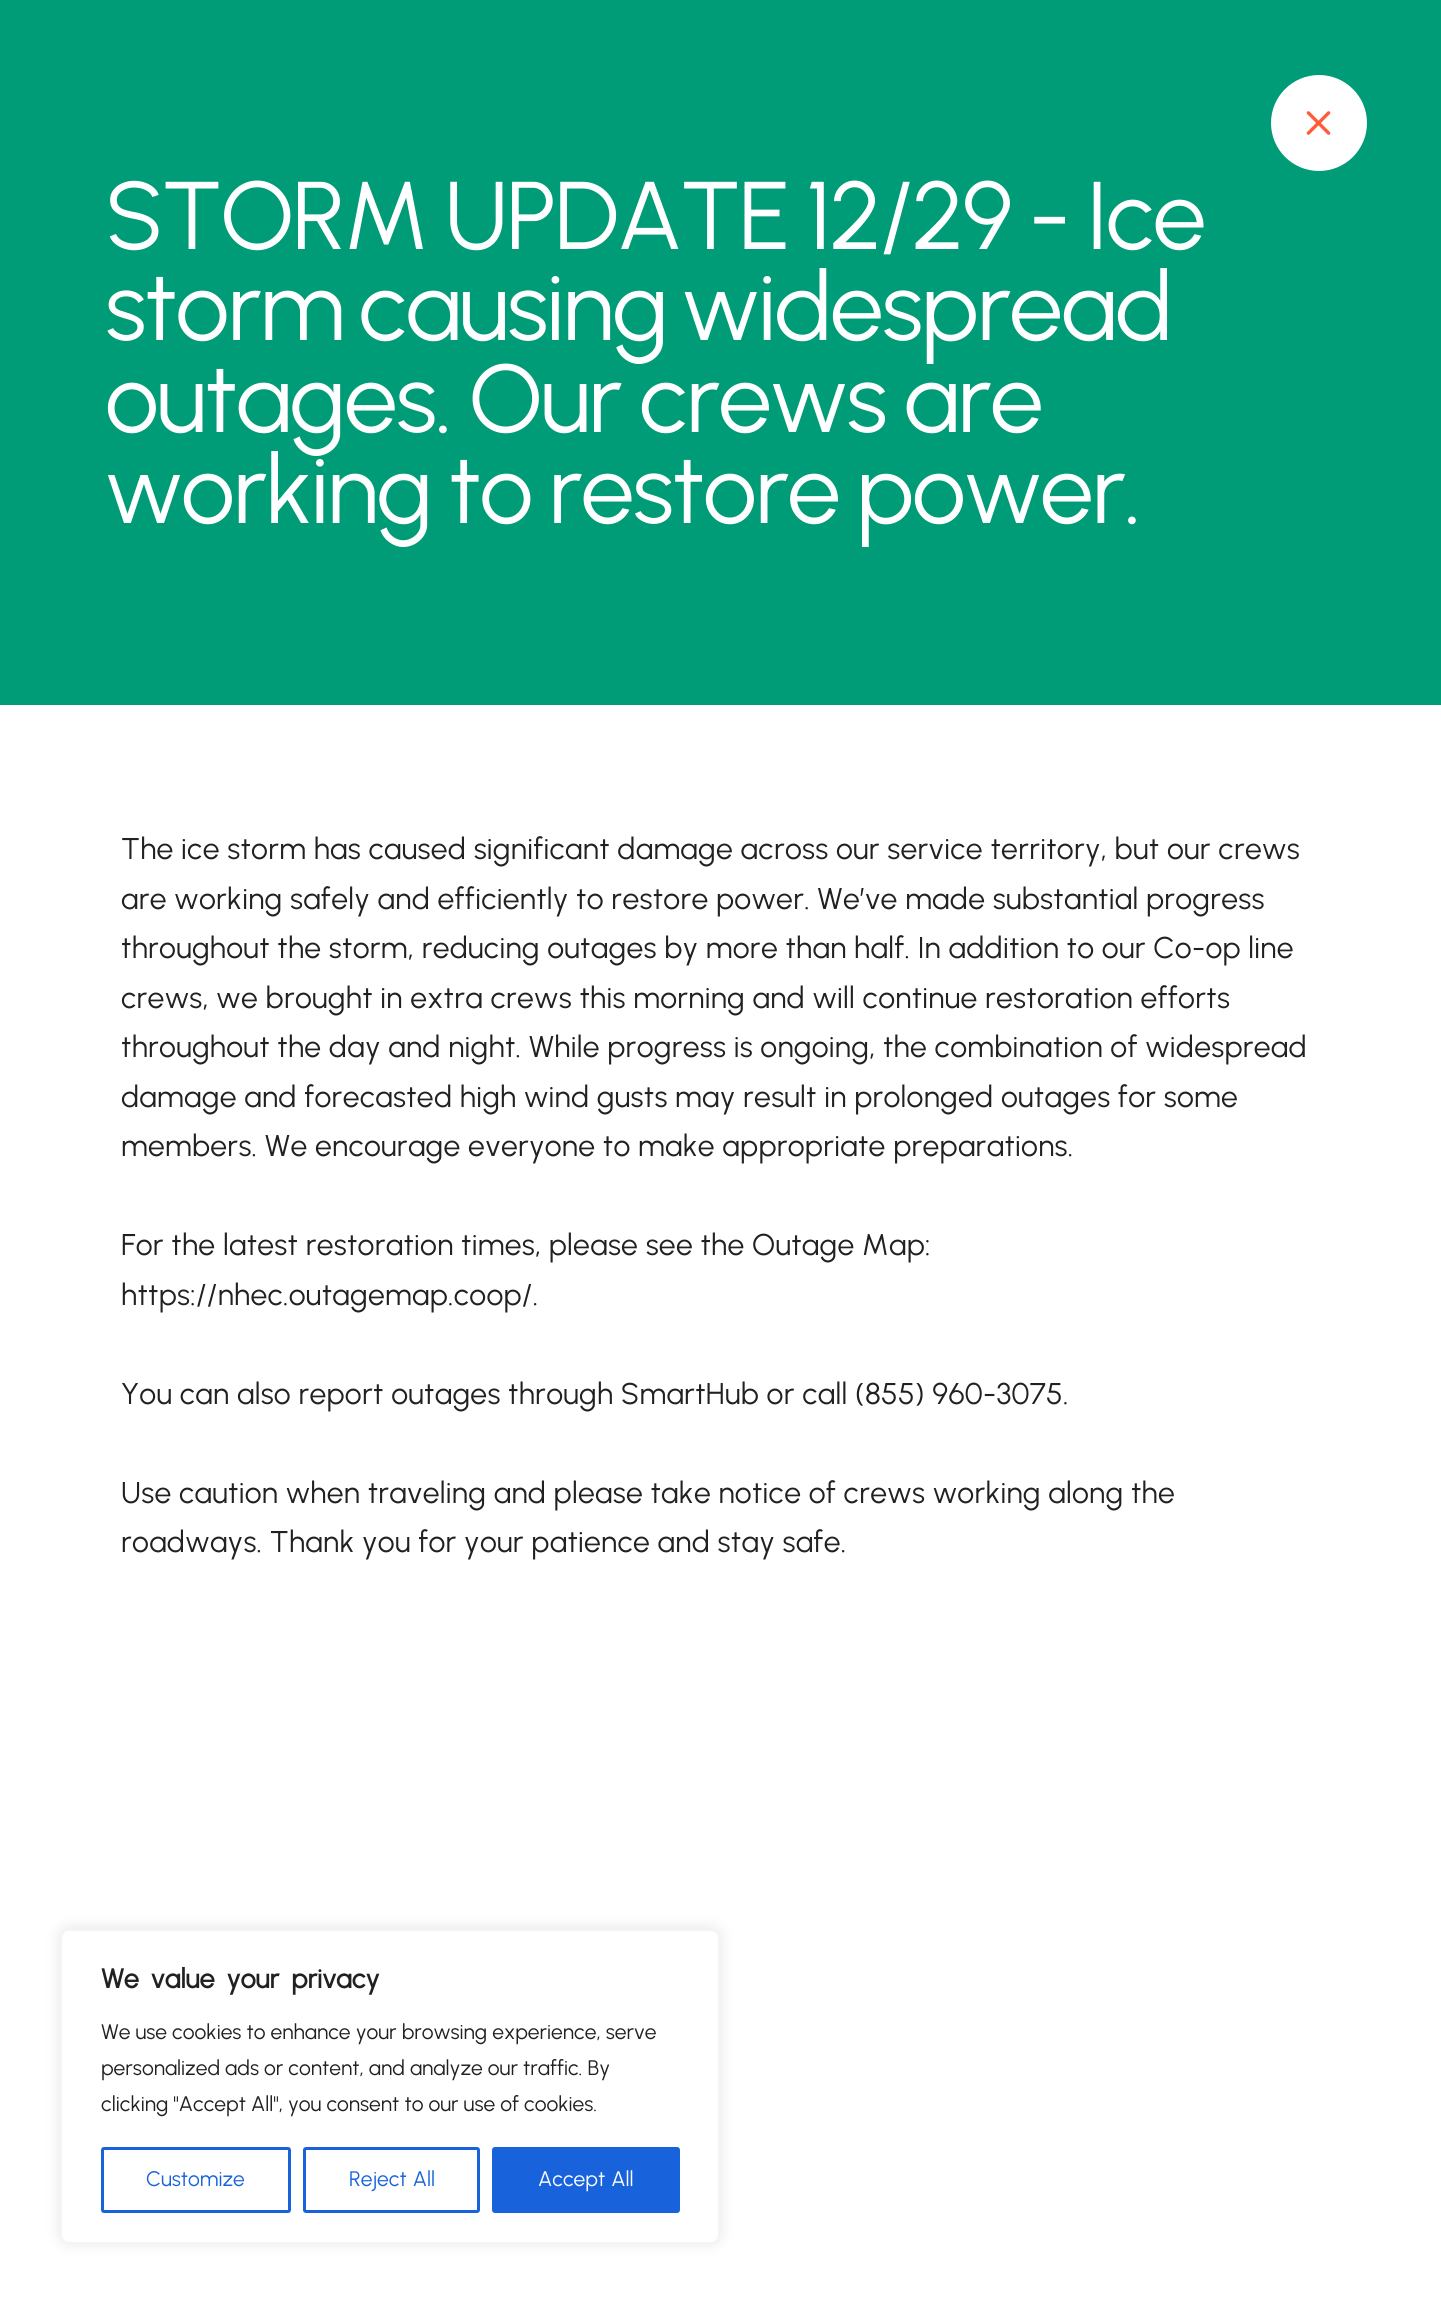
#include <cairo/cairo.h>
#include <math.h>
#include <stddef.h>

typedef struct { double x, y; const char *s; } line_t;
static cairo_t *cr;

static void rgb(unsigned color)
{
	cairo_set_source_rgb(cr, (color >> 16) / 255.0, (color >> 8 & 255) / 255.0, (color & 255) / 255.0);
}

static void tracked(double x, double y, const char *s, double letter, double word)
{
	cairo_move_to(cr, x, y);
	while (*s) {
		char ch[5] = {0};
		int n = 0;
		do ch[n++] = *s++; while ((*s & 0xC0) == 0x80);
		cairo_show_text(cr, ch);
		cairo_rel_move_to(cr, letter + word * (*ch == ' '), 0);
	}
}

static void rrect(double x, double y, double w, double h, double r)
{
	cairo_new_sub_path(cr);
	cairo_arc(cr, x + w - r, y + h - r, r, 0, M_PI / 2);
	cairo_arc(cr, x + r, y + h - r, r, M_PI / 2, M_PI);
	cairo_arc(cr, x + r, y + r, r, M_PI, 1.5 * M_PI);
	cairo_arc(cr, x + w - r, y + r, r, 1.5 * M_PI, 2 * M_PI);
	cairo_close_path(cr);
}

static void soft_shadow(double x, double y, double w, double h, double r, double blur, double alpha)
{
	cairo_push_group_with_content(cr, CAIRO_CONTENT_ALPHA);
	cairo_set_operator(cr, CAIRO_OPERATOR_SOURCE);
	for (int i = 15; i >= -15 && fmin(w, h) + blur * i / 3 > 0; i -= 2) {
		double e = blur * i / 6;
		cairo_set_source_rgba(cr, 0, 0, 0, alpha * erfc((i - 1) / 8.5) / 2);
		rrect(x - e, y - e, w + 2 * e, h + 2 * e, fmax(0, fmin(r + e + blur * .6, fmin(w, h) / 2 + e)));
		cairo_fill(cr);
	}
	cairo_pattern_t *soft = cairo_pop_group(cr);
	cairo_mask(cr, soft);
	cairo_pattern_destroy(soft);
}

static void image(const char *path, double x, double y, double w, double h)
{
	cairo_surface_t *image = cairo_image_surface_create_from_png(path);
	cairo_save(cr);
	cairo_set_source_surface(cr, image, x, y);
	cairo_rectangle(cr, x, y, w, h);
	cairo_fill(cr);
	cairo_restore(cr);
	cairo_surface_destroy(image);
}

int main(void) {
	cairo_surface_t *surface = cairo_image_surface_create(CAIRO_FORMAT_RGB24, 1441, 2303);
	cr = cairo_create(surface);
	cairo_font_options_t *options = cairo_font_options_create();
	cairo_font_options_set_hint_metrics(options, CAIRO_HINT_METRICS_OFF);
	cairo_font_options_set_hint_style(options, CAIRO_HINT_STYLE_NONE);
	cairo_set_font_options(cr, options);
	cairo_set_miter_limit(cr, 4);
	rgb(0xffffff);
	cairo_paint(cr);
	rgb(0x009b77);
	cairo_rectangle(cr, 0, 0, 1441, 705);
	cairo_fill(cr);
	rgb(0xffffff);
	cairo_arc(cr, 1319, 123, 48, 0, 2 * M_PI);
	cairo_fill(cr);
	image("img/1.png", 1306, 111, 25, 24);
	rgb(0xacabab);
	soft_shadow(60, 1928, 660, 315, 9, 7.5, 0.3);
	rgb(0xffffff);
	rrect(61, 1930, 658, 313, 8);
	cairo_fill_preserve(cr);
	rgb(0xf4f4f4);
	cairo_stroke(cr);
	rrect(102.5, 2148.5, 187, 63, 1.5);
	rgb(0x1863dc);
	cairo_set_line_width(cr, 3);
	cairo_stroke(cr);
	rrect(304.5, 2148.5, 174, 63, 1.5);
	cairo_stroke(cr);
	rrect(493.5, 2148.5, 185, 63, 1.5);
	cairo_fill_preserve(cr);
	cairo_stroke(cr);
	cairo_select_font_face(cr, "Urbanist", CAIRO_FONT_SLANT_NORMAL, CAIRO_FONT_WEIGHT_NORMAL);
	cairo_set_font_size(cr, 96);
	rgb(0xffffff);
	tracked(105, 249, "STORM UPDATE 12/29 - Ice", -1.9, -3.5);
	tracked(105, 340, "storm causing widespread", -1.9, -6);
	tracked(105, 432, "outages. Our crews are", -1.9, -3);
	tracked(105, 523, "working to restore power.", -1.9, -4);
	cairo_set_font_size(cr, 30);
	rgb(0x212121);
	{
		static const line_t items[] = {
			{121, 859, "The ice storm has caused significant damage across our service territory, but our crews"},
			{121, 909, "are working safely and efficiently to restore power. We’ve made substantial progress"},
			{121, 958, "throughout the storm, reducing outages by more than half. In addition to our Co-op line"},
			{121, 1008, "crews, we brought in extra crews this morning and will continue restoration efforts"},
			{121, 1057, "throughout the day and night. While progress is ongoing, the combination of widespread"},
			{121, 1107, "damage and forecasted high wind gusts may result in prolonged outages for some"},
			{121, 1156, "members. We encourage everyone to make appropriate preparations."},
			{121, 1255, "For the latest restoration times, please see the Outage Map:"},
			{121, 1305, "https://nhec.outagemap.coop/."},
			{121, 1404, "You can also report outages through SmartHub or call (855) 960-3075."},
			{121, 1503, "Use caution when traveling and please take notice of crews working along the"},
			{121, 1552, "roadways. Thank you for your patience and stay safe."},
		};
		for (size_t i = 0; i < sizeof items / sizeof *items; i++) {
			tracked(items[i].x, items[i].y, items[i].s, 0.3, 0);
		}
	}
	cairo_select_font_face(cr, "Urbanist", CAIRO_FONT_SLANT_NORMAL, CAIRO_FONT_WEIGHT_BOLD);
	cairo_set_font_size(cr, 27);
	tracked(101, 1988, "We value your privacy", 0, 5.5);
	cairo_select_font_face(cr, "Urbanist", CAIRO_FONT_SLANT_NORMAL, CAIRO_FONT_WEIGHT_NORMAL);
	cairo_set_font_size(cr, 21);
	{
		static const line_t items[] = {
			{101, 2039, "We use cookies to enhance your browsing experience, serve"},
			{101, 2075, "personalized ads or content, and analyze our traffic. By"},
			{101, 2111, "clicking \"Accept All\", you consent to our use of cookies."},
		};
		for (size_t i = 0; i < sizeof items / sizeof *items; i++) {
			cairo_move_to(cr, items[i].x, items[i].y);
			cairo_show_text(cr, items[i].s);
		}
	}
	rgb(0x1863dc);
	cairo_move_to(cr, 146, 2186);
	cairo_show_text(cr, "Customize");
	tracked(349, 2186, "Reject All", 0, 1);
	rgb(0xffffff);
	tracked(538, 2186, "Accept All", 0, 1);
	cairo_surface_write_to_png(surface, "page.png");
	cairo_font_options_destroy(options);
	cairo_destroy(cr);
	cairo_surface_destroy(surface);
	return 0;
}
